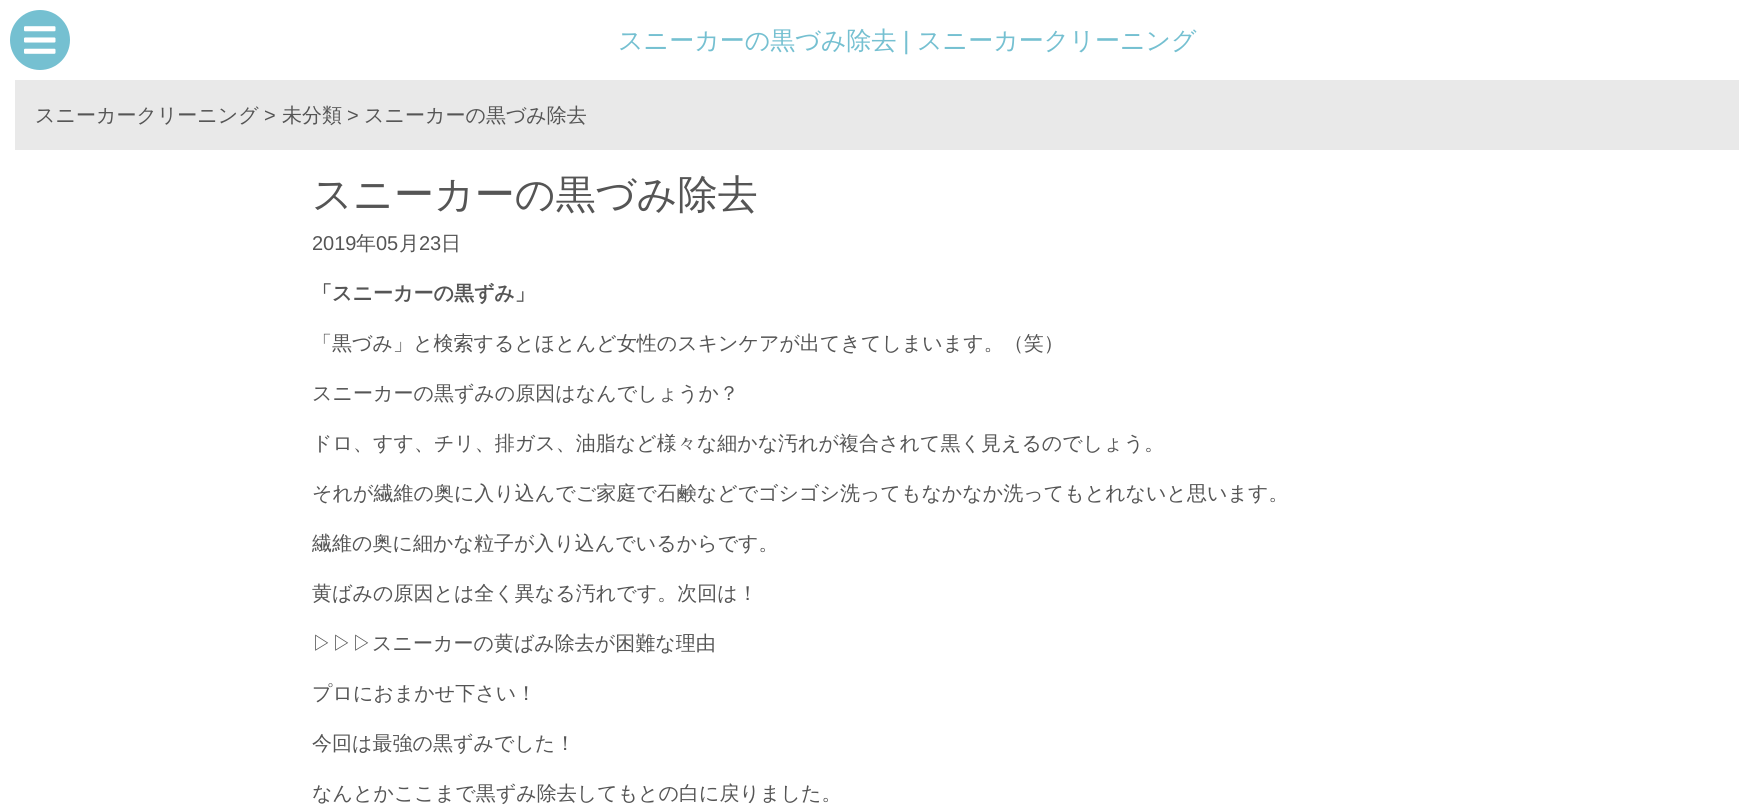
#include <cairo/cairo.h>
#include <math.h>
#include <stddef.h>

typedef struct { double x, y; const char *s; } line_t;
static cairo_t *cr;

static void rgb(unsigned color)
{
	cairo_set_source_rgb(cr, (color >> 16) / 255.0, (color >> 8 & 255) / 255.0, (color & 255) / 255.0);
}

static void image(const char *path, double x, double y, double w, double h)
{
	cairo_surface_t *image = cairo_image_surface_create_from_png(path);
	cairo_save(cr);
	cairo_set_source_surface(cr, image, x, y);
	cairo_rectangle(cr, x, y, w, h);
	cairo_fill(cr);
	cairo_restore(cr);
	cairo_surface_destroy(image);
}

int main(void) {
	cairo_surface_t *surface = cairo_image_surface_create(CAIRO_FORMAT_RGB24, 1754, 810);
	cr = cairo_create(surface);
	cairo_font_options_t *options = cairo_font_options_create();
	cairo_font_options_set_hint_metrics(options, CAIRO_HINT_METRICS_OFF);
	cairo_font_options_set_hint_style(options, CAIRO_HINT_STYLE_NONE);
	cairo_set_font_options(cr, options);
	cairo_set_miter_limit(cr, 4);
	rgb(0xffffff);
	cairo_paint(cr);
	rgb(0x75c0d1);
	cairo_arc(cr, 40, 40, 30, 0, 2 * M_PI);
	cairo_fill(cr);
	image("img/1.png", 24, 26, 32, 28);
	rgb(0xe9e9e9);
	cairo_rectangle(cr, 15, 80, 1724, 70);
	cairo_fill(cr);
	cairo_select_font_face(cr, "WenQuanYi Zen Hei Medium", CAIRO_FONT_SLANT_NORMAL, CAIRO_FONT_WEIGHT_NORMAL);
	cairo_set_font_size(cr, 25);
	rgb(0x75c0d1);
	cairo_move_to(cr, 618, 49);
	cairo_show_text(cr, "スニーカーの黒づみ除去");
	cairo_select_font_face(cr, "Liberation Sans", CAIRO_FONT_SLANT_NORMAL, CAIRO_FONT_WEIGHT_NORMAL);
	cairo_move_to(cr, 903, 49);
	cairo_show_text(cr, "|");
	cairo_select_font_face(cr, "WenQuanYi Zen Hei Medium", CAIRO_FONT_SLANT_NORMAL, CAIRO_FONT_WEIGHT_NORMAL);
	cairo_move_to(cr, 917, 49);
	cairo_show_text(cr, "スニーカークリーニング");
	cairo_set_font_size(cr, 20);
	rgb(0x555555);
	cairo_move_to(cr, 35, 122);
	cairo_show_text(cr, "スニーカークリーニング");
	cairo_select_font_face(cr, "Liberation Sans", CAIRO_FONT_SLANT_NORMAL, CAIRO_FONT_WEIGHT_NORMAL);
	cairo_move_to(cr, 264, 122);
	cairo_show_text(cr, ">");
	cairo_select_font_face(cr, "WenQuanYi Zen Hei Medium", CAIRO_FONT_SLANT_NORMAL, CAIRO_FONT_WEIGHT_NORMAL);
	cairo_move_to(cr, 282, 122);
	cairo_show_text(cr, "未分類");
	cairo_select_font_face(cr, "Liberation Sans", CAIRO_FONT_SLANT_NORMAL, CAIRO_FONT_WEIGHT_NORMAL);
	cairo_move_to(cr, 347, 122);
	cairo_show_text(cr, ">");
	cairo_select_font_face(cr, "WenQuanYi Zen Hei Medium", CAIRO_FONT_SLANT_NORMAL, CAIRO_FONT_WEIGHT_NORMAL);
	cairo_move_to(cr, 364, 122);
	cairo_show_text(cr, "スニーカーの黒づみ除去");
	cairo_set_font_size(cr, 40);
	cairo_move_to(cr, 312, 208);
	cairo_show_text(cr, "スニーカーの黒づみ除去");
	cairo_select_font_face(cr, "Liberation Sans", CAIRO_FONT_SLANT_NORMAL, CAIRO_FONT_WEIGHT_NORMAL);
	cairo_set_font_size(cr, 20);
	cairo_move_to(cr, 312, 250);
	cairo_show_text(cr, "2019");
	cairo_select_font_face(cr, "WenQuanYi Zen Hei Medium", CAIRO_FONT_SLANT_NORMAL, CAIRO_FONT_WEIGHT_NORMAL);
	cairo_move_to(cr, 356, 250);
	cairo_show_text(cr, "年");
	cairo_select_font_face(cr, "Liberation Sans", CAIRO_FONT_SLANT_NORMAL, CAIRO_FONT_WEIGHT_NORMAL);
	cairo_move_to(cr, 376, 250);
	cairo_show_text(cr, "05");
	cairo_select_font_face(cr, "WenQuanYi Zen Hei Medium", CAIRO_FONT_SLANT_NORMAL, CAIRO_FONT_WEIGHT_NORMAL);
	cairo_move_to(cr, 399, 250);
	cairo_show_text(cr, "月");
	cairo_select_font_face(cr, "Liberation Sans", CAIRO_FONT_SLANT_NORMAL, CAIRO_FONT_WEIGHT_NORMAL);
	cairo_move_to(cr, 419, 250);
	cairo_show_text(cr, "23");
	cairo_select_font_face(cr, "WenQuanYi Zen Hei Medium", CAIRO_FONT_SLANT_NORMAL, CAIRO_FONT_WEIGHT_NORMAL);
	cairo_move_to(cr, 441, 250);
	cairo_show_text(cr, "日");
	cairo_select_font_face(cr, "WenQuanYi Zen Hei", CAIRO_FONT_SLANT_NORMAL, CAIRO_FONT_WEIGHT_BOLD);
	cairo_move_to(cr, 312, 300);
	cairo_show_text(cr, "「スニーカーの黒ずみ」");
	cairo_select_font_face(cr, "WenQuanYi Zen Hei Medium", CAIRO_FONT_SLANT_NORMAL, CAIRO_FONT_WEIGHT_NORMAL);
	{
		static const line_t items[] = {
			{312, 350, "「黒づみ」と検索するとほとんど女性のスキンケアが出てきてしまいます。（笑）"},
			{312, 400, "スニーカーの黒ずみの原因はなんでしょうか？"},
			{312, 450, "ドロ、すす、チリ、排ガス、油脂など様々な細かな汚れが複合されて黒く見えるのでしょう。"},
			{312, 500, "それが繊維の奥に入り込んでご家庭で石鹸などでゴシゴシ洗ってもなかなか洗ってもとれないと思います。"},
			{312, 550, "繊維の奥に細かな粒子が入り込んでいるからです。"},
			{312, 600, "黄ばみの原因とは全く異なる汚れです。次回は！"},
			{312, 650, "▷▷▷スニーカーの黄ばみ除去が困難な理由"},
			{312, 700, "プロにおまかせ下さい！"},
			{312, 750, "今回は最強の黒ずみでした！"},
			{312, 800, "なんとかここまで黒ずみ除去してもとの白に戻りました。"},
		};
		for (size_t i = 0; i < sizeof items / sizeof *items; i++) {
			cairo_move_to(cr, items[i].x, items[i].y);
			cairo_show_text(cr, items[i].s);
		}
	}
	cairo_surface_write_to_png(surface, "page.png");
	cairo_font_options_destroy(options);
	cairo_destroy(cr);
	cairo_surface_destroy(surface);
	return 0;
}
